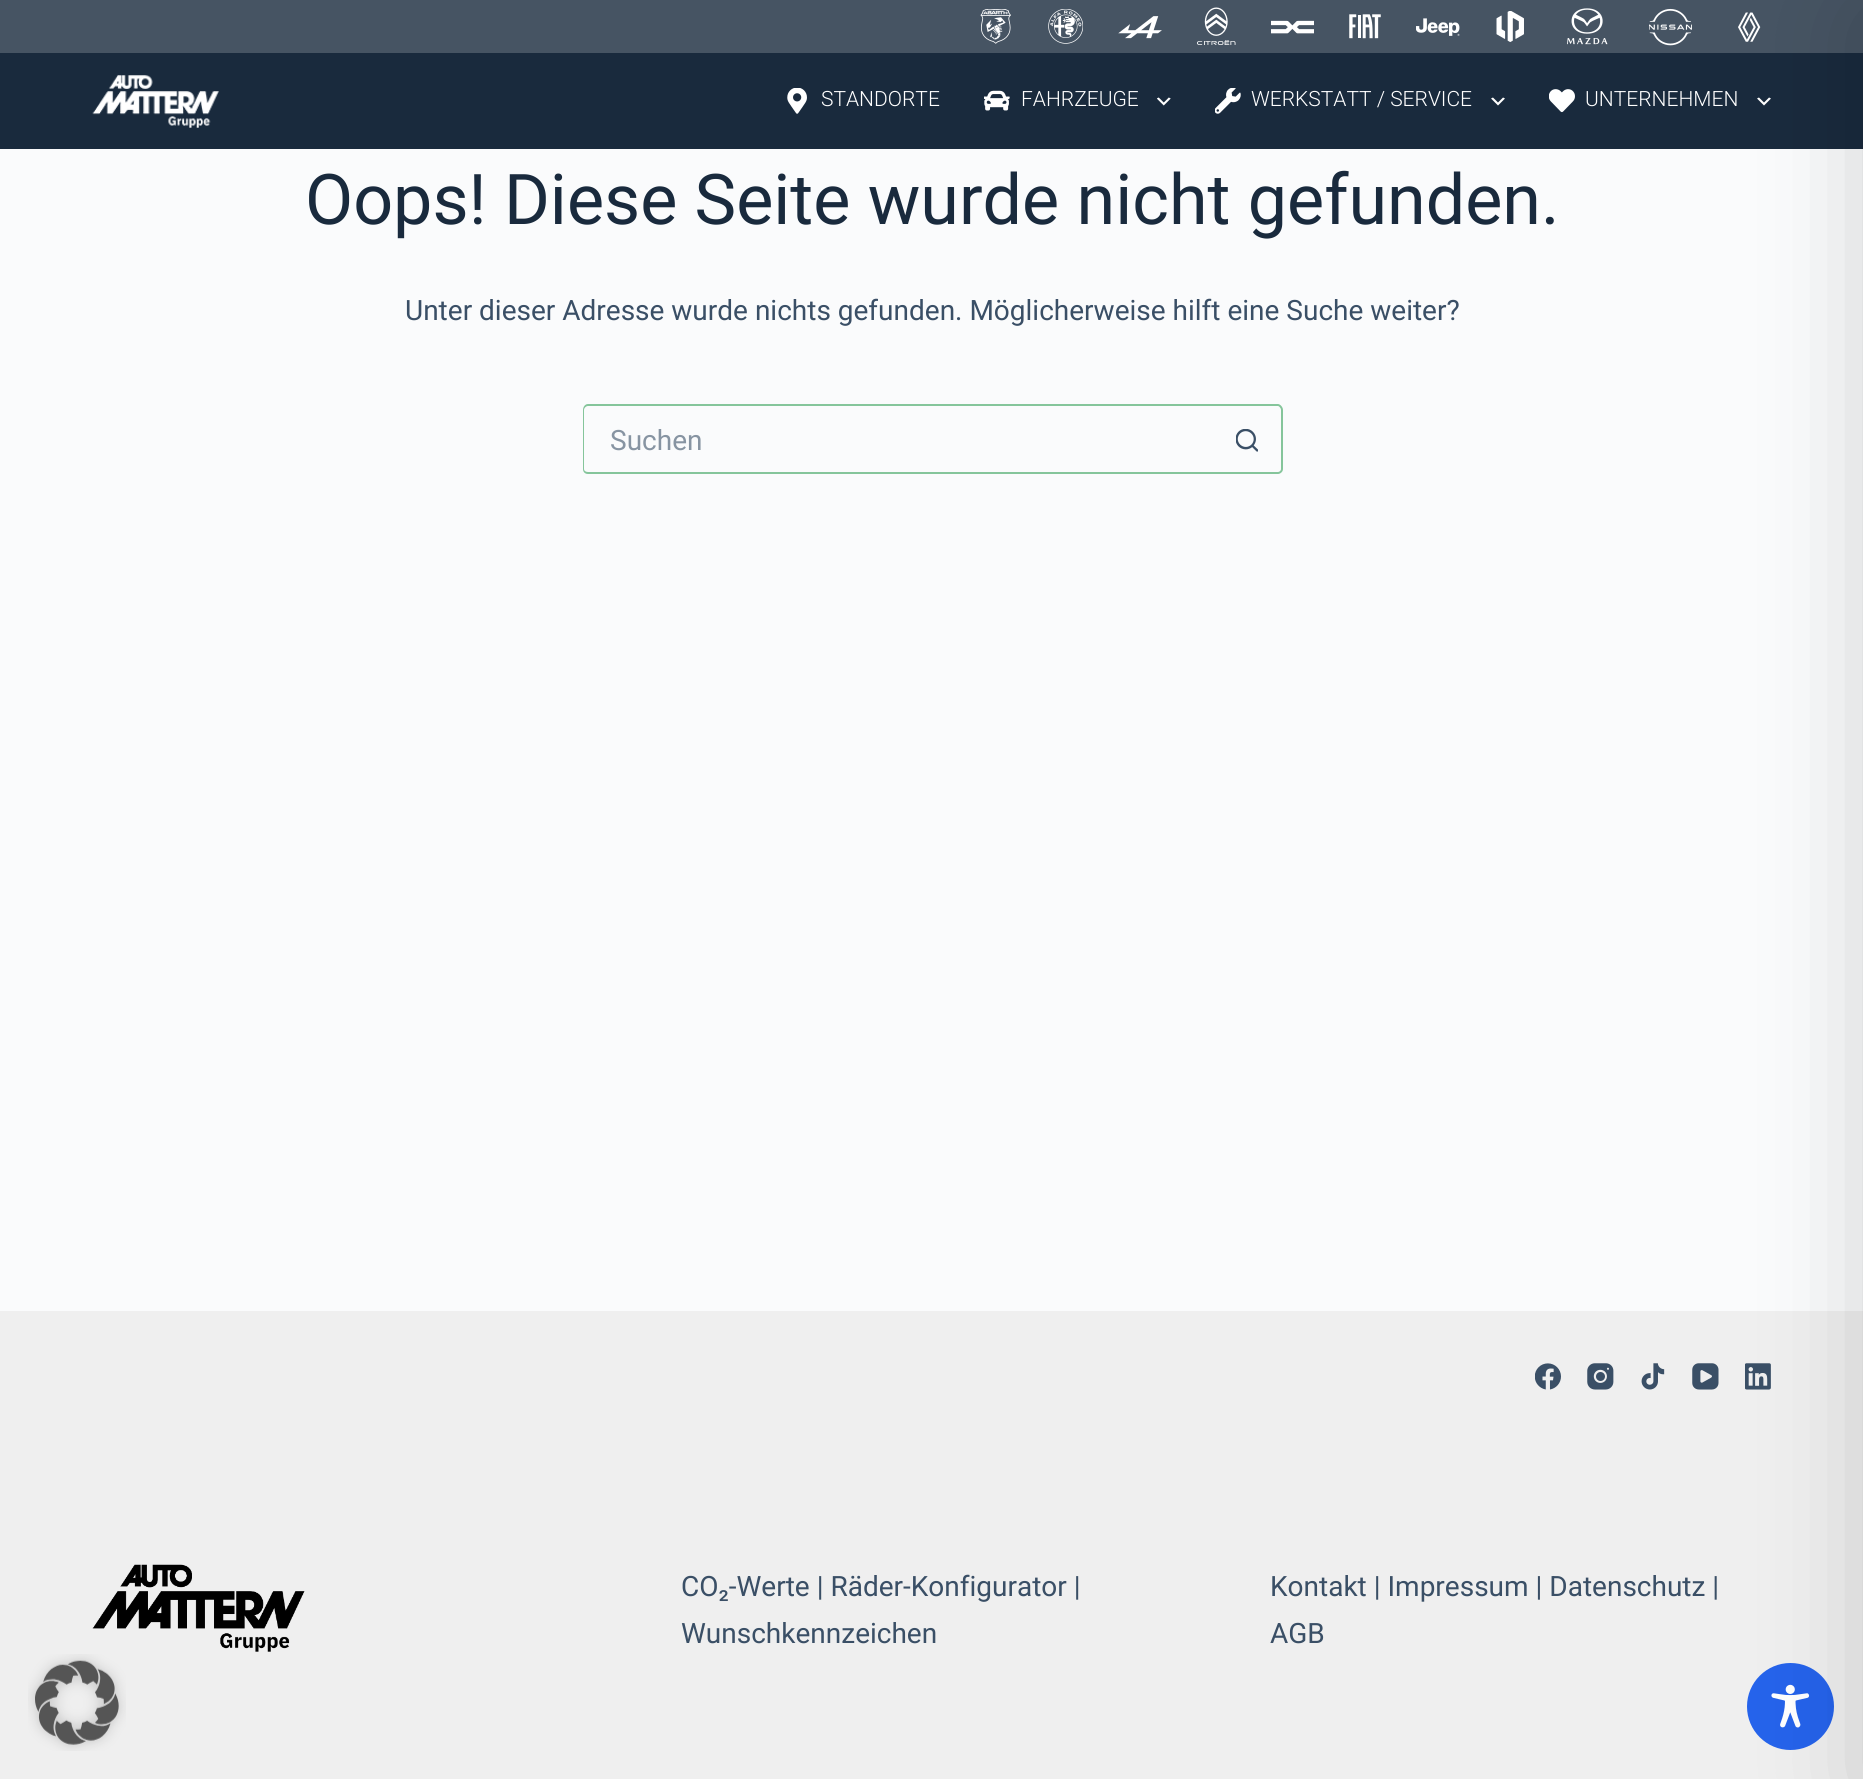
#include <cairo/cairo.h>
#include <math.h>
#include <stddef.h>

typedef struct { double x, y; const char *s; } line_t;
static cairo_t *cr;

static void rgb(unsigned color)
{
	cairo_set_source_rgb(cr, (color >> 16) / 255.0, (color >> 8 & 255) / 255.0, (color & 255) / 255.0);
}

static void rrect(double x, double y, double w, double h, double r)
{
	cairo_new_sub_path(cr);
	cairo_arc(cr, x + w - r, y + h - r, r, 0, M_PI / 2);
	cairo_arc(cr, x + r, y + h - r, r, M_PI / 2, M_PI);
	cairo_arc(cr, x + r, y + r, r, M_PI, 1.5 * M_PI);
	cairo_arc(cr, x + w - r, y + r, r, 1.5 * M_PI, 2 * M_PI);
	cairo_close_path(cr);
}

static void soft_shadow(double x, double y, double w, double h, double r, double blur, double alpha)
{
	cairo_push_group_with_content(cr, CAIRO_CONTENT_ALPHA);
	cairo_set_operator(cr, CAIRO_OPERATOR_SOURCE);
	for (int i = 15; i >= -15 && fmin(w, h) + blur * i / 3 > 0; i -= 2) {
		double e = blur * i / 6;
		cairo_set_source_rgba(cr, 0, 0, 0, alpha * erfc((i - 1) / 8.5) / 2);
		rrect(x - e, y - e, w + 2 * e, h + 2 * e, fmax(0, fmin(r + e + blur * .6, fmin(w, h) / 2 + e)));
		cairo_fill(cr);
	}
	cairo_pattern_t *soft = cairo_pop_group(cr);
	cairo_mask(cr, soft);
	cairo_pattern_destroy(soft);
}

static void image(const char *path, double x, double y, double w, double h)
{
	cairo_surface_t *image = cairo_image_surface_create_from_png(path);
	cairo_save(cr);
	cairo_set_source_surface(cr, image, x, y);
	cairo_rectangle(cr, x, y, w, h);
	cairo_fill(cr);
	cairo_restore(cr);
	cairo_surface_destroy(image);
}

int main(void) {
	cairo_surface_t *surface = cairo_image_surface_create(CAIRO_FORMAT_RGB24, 1863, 1779);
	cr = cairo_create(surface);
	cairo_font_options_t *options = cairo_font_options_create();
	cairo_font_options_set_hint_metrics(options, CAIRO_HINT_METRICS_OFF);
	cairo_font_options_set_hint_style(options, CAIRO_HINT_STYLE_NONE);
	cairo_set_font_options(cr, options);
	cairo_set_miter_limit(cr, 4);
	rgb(0xfafbfc);
	cairo_paint(cr);
	rgb(0x465463);
	cairo_rectangle(cr, 0, 0, 1863, 53);
	cairo_fill(cr);
	image("img/1.png", 980, 9, 31, 35);
	image("img/2.png", 1048, 9, 35, 35);
	image("img/3.png", 1118, 16, 44, 23);
	image("img/4.png", 1197, 7, 39, 38);
	image("img/5.png", 1271, 20, 43, 14);
	image("img/6.png", 1349, 14, 32, 25);
	image("img/7.png", 1416, 18, 44, 18);
	image("img/8.png", 1496, 11, 28, 31);
	image("img/9.png", 1567, 8, 41, 37);
	image("img/10.png", 1649, 8, 43, 38);
	image("img/11.png", 1738, 12, 23, 30);
	rgb(0x192a3d);
	cairo_rectangle(cr, 0, 53, 1863, 96);
	cairo_fill(cr);
	image("img/12.png", 92, 75, 127, 53);
	image("img/13.png", 787, 88, 20, 26);
	image("img/14.png", 984, 90, 26, 21);
	image("img/15.png", 1157, 97, 14, 9);
	image("img/16.png", 1215, 88, 26, 26);
	image("img/17.png", 1491, 97, 14, 9);
	image("img/18.png", 1549, 89, 26, 24);
	image("img/17.png", 1757, 97, 14, 9);
	rgb(0x85c59b);
	cairo_set_fill_rule(cr, CAIRO_FILL_RULE_EVEN_ODD);
	cairo_new_path(cr);
	cairo_move_to(cr, 588, 404);
	cairo_line_to(cr, 1213, 404);
	cairo_line_to(cr, 1213, 474);
	cairo_line_to(cr, 588, 474);
	cairo_curve_to(cr, 585, 474, 583, 472, 583, 469);
	cairo_line_to(cr, 583, 410);
	cairo_curve_to(cr, 583, 407, 585, 404, 588, 404);
	cairo_close_path(cr);
	cairo_move_to(cr, 588, 406);
	cairo_line_to(cr, 1213, 406);
	cairo_line_to(cr, 1213, 472);
	cairo_line_to(cr, 588, 472);
	cairo_curve_to(cr, 586, 472, 584, 471, 584, 469);
	cairo_line_to(cr, 584, 410);
	cairo_curve_to(cr, 584, 408, 586, 406, 588, 406);
	cairo_close_path(cr);
	cairo_fill(cr);
	cairo_new_path(cr);
	cairo_move_to(cr, 1213, 404);
	cairo_line_to(cr, 1278, 404);
	cairo_curve_to(cr, 1280, 404, 1283, 407, 1283, 410);
	cairo_line_to(cr, 1283, 469);
	cairo_curve_to(cr, 1283, 472, 1280, 474, 1278, 474);
	cairo_line_to(cr, 1213, 474);
	cairo_close_path(cr);
	cairo_move_to(cr, 1213, 406);
	cairo_line_to(cr, 1278, 406);
	cairo_curve_to(cr, 1279, 406, 1281, 408, 1281, 410);
	cairo_line_to(cr, 1281, 469);
	cairo_curve_to(cr, 1281, 471, 1279, 472, 1278, 472);
	cairo_line_to(cr, 1213, 472);
	cairo_close_path(cr);
	cairo_fill(cr);
	image("img/19.png", 1236, 429, 22, 23);
	rgb(0xefefef);
	cairo_rectangle(cr, 0, 1311, 1863, 468);
	cairo_fill(cr);
	image("img/20.png", 1535, 1363, 26, 27);
	image("img/21.png", 1587, 1363, 27, 27);
	image("img/22.png", 1641, 1363, 24, 27);
	image("img/23.png", 1692, 1363, 27, 27);
	image("img/24.png", 1745, 1363, 26, 27);
	image("img/25.png", 92, 1564, 213, 88);
	rgb(0x2563eb);
	cairo_arc(cr, 1790.5, 1706.5, 43.5, 0, 2 * M_PI);
	cairo_fill(cr);
	image("img/27.png", 1771, 1684, 39, 44);
	rgb(0x000000);
	soft_shadow(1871, 18, 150, 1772, 0, 52.5, 0.2);
	image("img/26.png", 28, 1654, 98, 97);
	cairo_select_font_face(cr, "Roboto Light", CAIRO_FONT_SLANT_NORMAL, CAIRO_FONT_WEIGHT_NORMAL);
	cairo_set_font_size(cr, 21);
	rgb(0xffffff);
	{
		static const line_t items[] = {
			{821, 106, "STANDORTE"},
			{1021, 106, "FAHRZEUGE"},
			{1251, 106, "WERKSTATT / SERVICE"},
			{1585, 106, "UNTERNEHMEN"},
		};
		for (size_t i = 0; i < sizeof items / sizeof *items; i++) {
			cairo_move_to(cr, items[i].x, items[i].y);
			cairo_show_text(cr, items[i].s);
		}
	}
	cairo_select_font_face(cr, "Roboto", CAIRO_FONT_SLANT_NORMAL, CAIRO_FONT_WEIGHT_NORMAL);
	cairo_set_font_size(cr, 70);
	rgb(0x192a3d);
	cairo_move_to(cr, 305, 224);
	cairo_show_text(cr, "Oops! Diese Seite wurde nicht gefunden.");
	cairo_set_font_size(cr, 28);
	rgb(0x3a4f66);
	cairo_move_to(cr, 405, 320);
	cairo_show_text(cr, "Unter dieser Adresse wurde nichts gefunden. Möglicherweise hilft eine Suche weiter?");
	rgb(0x8794a2);
	cairo_move_to(cr, 610, 450);
	cairo_show_text(cr, "Suchen");
	rgb(0x3a4f66);
	{
		static const line_t items[] = {
			{681, 1596, "CO₂-Werte | Räder-Konfigurator |"},
			{681, 1643, "Wunschkennzeichen"},
			{1270, 1596, "Kontakt | Impressum | Datenschutz |"},
			{1270, 1643, "AGB"},
		};
		for (size_t i = 0; i < sizeof items / sizeof *items; i++) {
			cairo_move_to(cr, items[i].x, items[i].y);
			cairo_show_text(cr, items[i].s);
		}
	}
	cairo_surface_write_to_png(surface, "page.png");
	cairo_font_options_destroy(options);
	cairo_destroy(cr);
	cairo_surface_destroy(surface);
	return 0;
}
